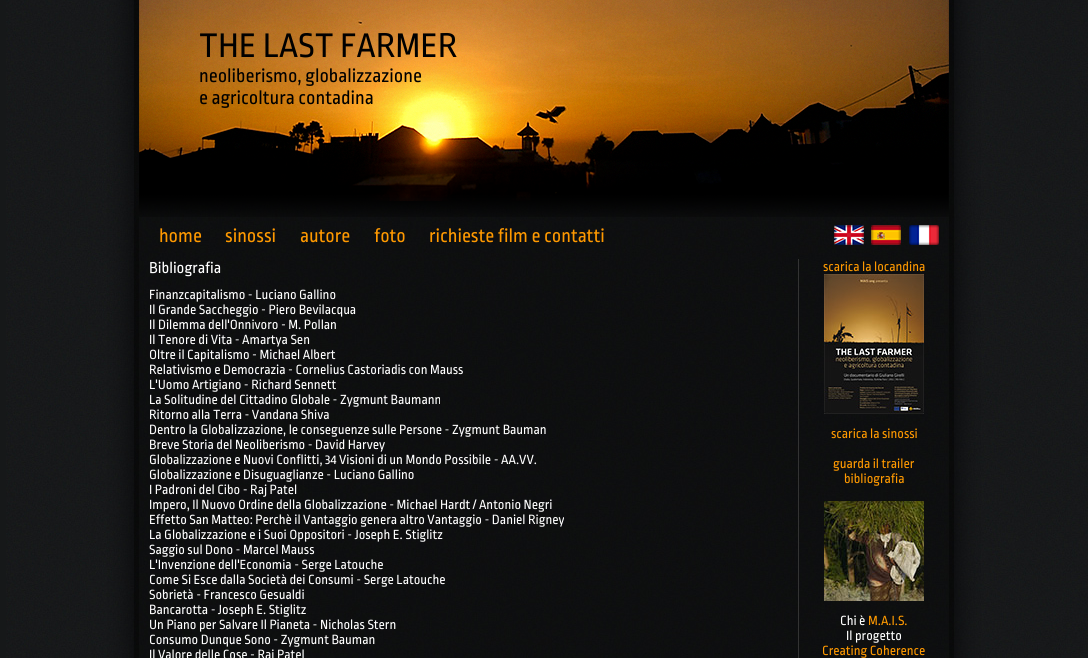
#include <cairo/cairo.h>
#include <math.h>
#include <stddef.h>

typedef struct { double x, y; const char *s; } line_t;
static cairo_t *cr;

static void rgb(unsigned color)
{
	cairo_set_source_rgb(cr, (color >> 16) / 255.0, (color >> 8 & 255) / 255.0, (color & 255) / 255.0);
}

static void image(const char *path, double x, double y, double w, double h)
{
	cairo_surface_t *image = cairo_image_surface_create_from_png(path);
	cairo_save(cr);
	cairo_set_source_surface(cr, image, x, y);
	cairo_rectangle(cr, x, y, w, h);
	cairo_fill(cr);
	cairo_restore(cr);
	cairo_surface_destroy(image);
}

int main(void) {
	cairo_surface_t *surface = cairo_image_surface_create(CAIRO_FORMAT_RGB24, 1088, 658);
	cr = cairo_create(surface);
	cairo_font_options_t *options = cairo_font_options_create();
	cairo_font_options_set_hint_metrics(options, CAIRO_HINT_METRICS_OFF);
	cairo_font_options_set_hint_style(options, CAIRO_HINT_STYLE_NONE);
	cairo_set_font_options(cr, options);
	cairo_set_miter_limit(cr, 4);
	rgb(0x161819);
	cairo_paint(cr);
	image("img/1.png", 6, 0, 1082, 658);
	image("img/2.png", 139, 0, 810, 217);
	image("img/3.png", 834, 225, 30, 20);
	image("img/4.png", 871, 225, 30, 20);
	image("img/5.png", 909, 225, 30, 20);
	rgb(0x333333);
	cairo_rectangle(cr, 798, 259, 1, 399);
	cairo_fill(cr);
	image("img/6.png", 824, 274, 100, 140);
	image("img/7.png", 824, 501, 100, 100);
	cairo_select_font_face(cr, "Ropa Sans", CAIRO_FONT_SLANT_NORMAL, CAIRO_FONT_WEIGHT_NORMAL);
	cairo_set_font_size(cr, 36);
	rgb(0x000000);
	cairo_move_to(cr, 199, 57);
	cairo_show_text(cr, "THE LAST FARMER");
	cairo_set_font_size(cr, 20);
	cairo_move_to(cr, 199, 82);
	cairo_show_text(cr, "neoliberismo, globalizzazione");
	cairo_move_to(cr, 199, 104);
	cairo_show_text(cr, "e agricoltura contadina");
	rgb(0xff9900);
	{
		static const line_t items[] = {
			{159, 242, "home"},
			{225, 242, "sinossi"},
			{300, 242, "autore"},
			{374, 242, "foto"},
			{429, 242, "richieste film e contatti"},
		};
		for (size_t i = 0; i < sizeof items / sizeof *items; i++) {
			cairo_move_to(cr, items[i].x, items[i].y);
			cairo_show_text(cr, items[i].s);
		}
	}
	cairo_set_font_size(cr, 16.5);
	rgb(0xffffff);
	cairo_move_to(cr, 149, 273);
	cairo_show_text(cr, "Bibliografia");
	cairo_set_font_size(cr, 14);
	{
		static const line_t items[] = {
			{149, 299, "Finanzcapitalismo - Luciano Gallino"},
			{149, 314, "Il Grande Saccheggio - Piero Bevilacqua"},
			{149, 329, "Il Dilemma dell'Onnivoro - M. Pollan"},
			{149, 344, "Il Tenore di Vita - Amartya Sen"},
			{149, 359, "Oltre il Capitalismo - Michael Albert"},
			{149, 374, "Relativismo e Democrazia - Cornelius Castoriadis con Mauss"},
			{149, 389, "L'Uomo Artigiano - Richard Sennett"},
			{149, 404, "La Solitudine del Cittadino Globale - Zygmunt Baumann"},
			{149, 419, "Ritorno alla Terra - Vandana Shiva"},
			{149, 434, "Dentro la Globalizzazione, le conseguenze sulle Persone - Zygmunt Bauman"},
			{149, 449, "Breve Storia del Neoliberismo - David Harvey"},
			{149, 464, "Globalizzazione e Nuovi Conflitti, 34 Visioni di un Mondo Possibile - AA.VV."},
			{149, 479, "Globalizzazione e Disuguaglianze - Luciano Gallino"},
			{149, 494, "I Padroni del Cibo - Raj Patel"},
			{149, 509, "Impero, Il Nuovo Ordine della Globalizzazione - Michael Hardt / Antonio Negri"},
			{149, 524, "Effetto San Matteo: Perchè il Vantaggio genera altro Vantaggio - Daniel Rigney"},
			{149, 539, "La Globalizzazione e i Suoi Oppositori - Joseph E. Stiglitz"},
			{149, 554, "Saggio sul Dono - Marcel Mauss"},
			{149, 569, "L'Invenzione dell'Economia - Serge Latouche"},
			{149, 584, "Come Si Esce dalla Società dei Consumi - Serge Latouche"},
			{149, 599, "Sobrietà - Francesco Gesualdi"},
			{149, 614, "Bancarotta - Joseph E. Stiglitz"},
			{149, 629, "Un Piano per Salvare Il Pianeta - Nicholas Stern"},
			{149, 644, "Consumo Dunque Sono - Zygmunt Bauman"},
			{149, 659, "Il Valore delle Cose - Raj Patel"},
		};
		for (size_t i = 0; i < sizeof items / sizeof *items; i++) {
			cairo_move_to(cr, items[i].x, items[i].y);
			cairo_show_text(cr, items[i].s);
		}
	}
	rgb(0xff9900);
	{
		static const line_t items[] = {
			{823, 271, "scarica la locandina"},
			{831, 438, "scarica la sinossi"},
			{833, 468, "guarda il trailer"},
			{844, 483, "bibliografia"},
		};
		for (size_t i = 0; i < sizeof items / sizeof *items; i++) {
			cairo_move_to(cr, items[i].x, items[i].y);
			cairo_show_text(cr, items[i].s);
		}
	}
	rgb(0xffffff);
	cairo_move_to(cr, 840, 625);
	cairo_show_text(cr, "Chi è");
	rgb(0xff9900);
	cairo_move_to(cr, 868, 625);
	cairo_show_text(cr, "M.A.I.S.");
	rgb(0xffffff);
	cairo_move_to(cr, 846, 640);
	cairo_show_text(cr, "Il progetto");
	rgb(0xff9900);
	cairo_move_to(cr, 822, 655);
	cairo_show_text(cr, "Creating Coherence");
	cairo_surface_write_to_png(surface, "page.png");
	cairo_font_options_destroy(options);
	cairo_destroy(cr);
	cairo_surface_destroy(surface);
	return 0;
}
